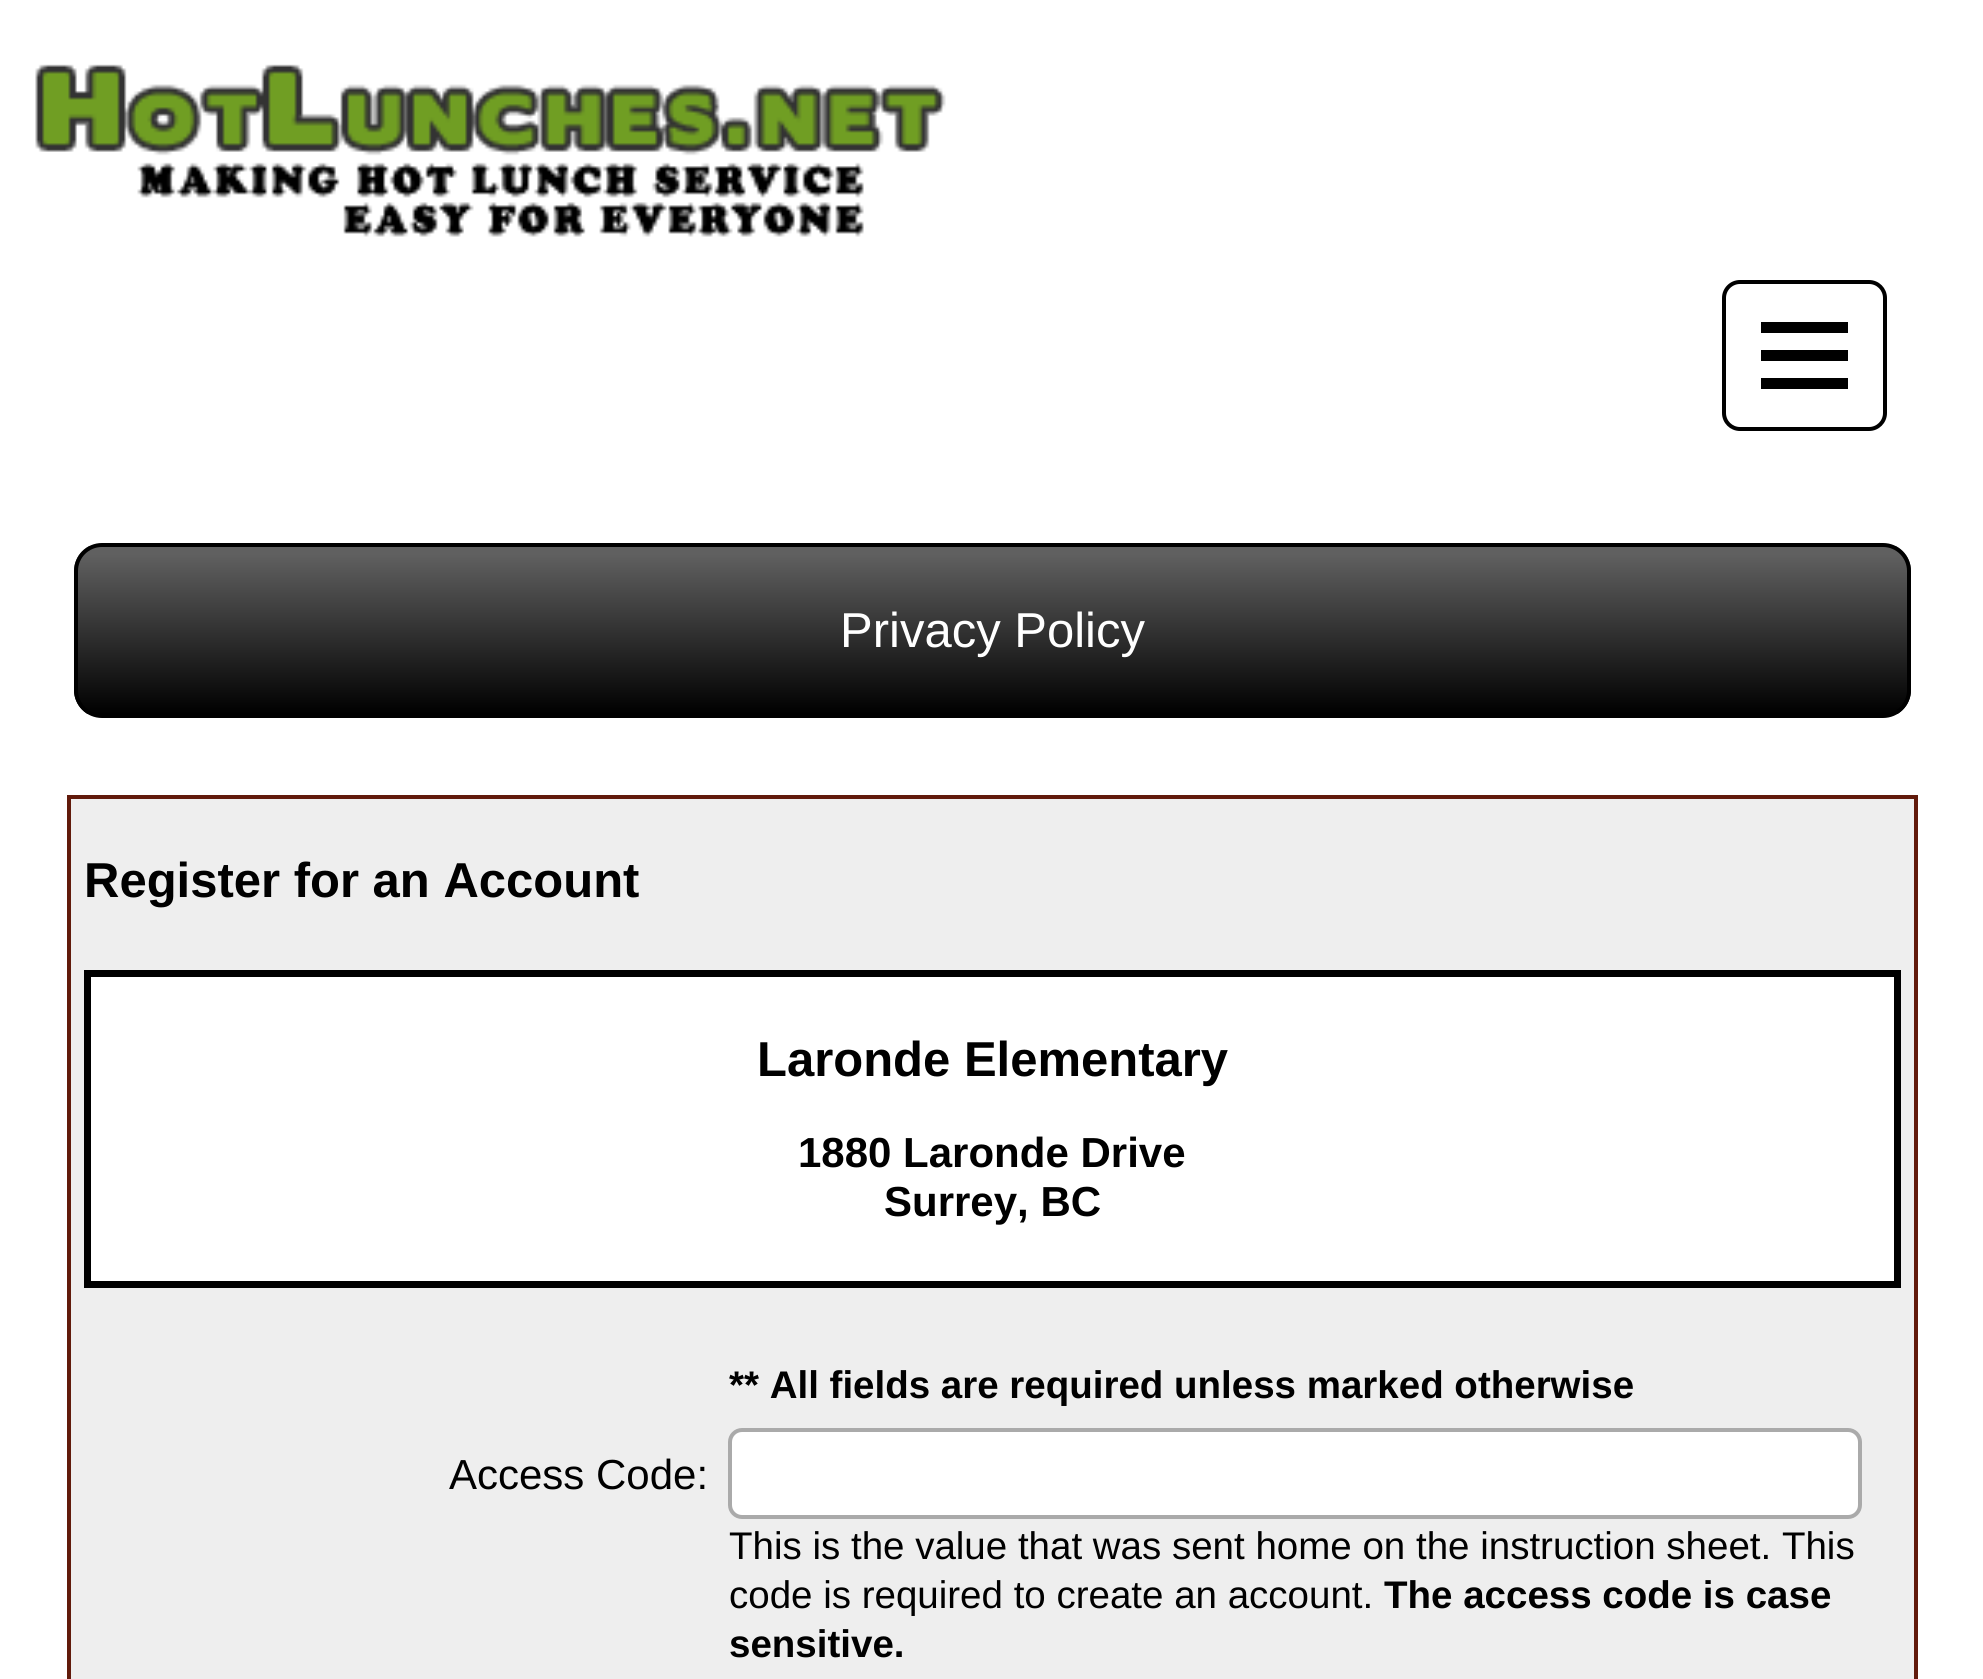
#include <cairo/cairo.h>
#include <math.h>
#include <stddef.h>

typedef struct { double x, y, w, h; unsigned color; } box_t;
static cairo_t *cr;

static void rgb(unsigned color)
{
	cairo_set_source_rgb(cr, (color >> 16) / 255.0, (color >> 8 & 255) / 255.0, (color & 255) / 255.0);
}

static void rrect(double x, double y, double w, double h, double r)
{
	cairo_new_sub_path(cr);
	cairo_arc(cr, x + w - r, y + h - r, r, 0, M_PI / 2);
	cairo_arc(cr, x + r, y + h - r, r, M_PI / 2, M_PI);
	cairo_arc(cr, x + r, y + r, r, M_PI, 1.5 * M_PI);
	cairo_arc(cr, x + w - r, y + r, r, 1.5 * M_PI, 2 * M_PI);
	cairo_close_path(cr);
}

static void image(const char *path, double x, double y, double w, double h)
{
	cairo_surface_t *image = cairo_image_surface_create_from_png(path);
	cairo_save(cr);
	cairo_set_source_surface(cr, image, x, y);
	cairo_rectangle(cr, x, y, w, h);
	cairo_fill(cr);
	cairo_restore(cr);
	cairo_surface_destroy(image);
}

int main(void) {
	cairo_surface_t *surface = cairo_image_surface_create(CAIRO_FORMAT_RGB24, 1983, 1679);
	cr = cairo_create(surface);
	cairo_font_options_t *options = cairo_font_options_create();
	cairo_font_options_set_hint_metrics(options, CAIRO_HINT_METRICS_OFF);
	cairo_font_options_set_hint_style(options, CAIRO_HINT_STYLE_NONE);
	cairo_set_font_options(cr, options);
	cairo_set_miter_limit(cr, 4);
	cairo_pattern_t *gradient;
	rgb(0xffffff);
	cairo_paint(cr);
	image("img/1.png", 35, 64, 911, 173);
	rrect(1724, 282, 161, 147, 16);
	rgb(0x000000);
	cairo_set_line_width(cr, 4);
	cairo_stroke(cr);
	{
		static const box_t items[] = {
			{1761, 322, 87, 11, 0x000000},
			{1761, 350, 87, 11, 0x000000},
			{1761, 378, 87, 11, 0x000000},
		};
		for (size_t i = 0; i < sizeof items / sizeof *items; i++) {
			rgb(items[i].color);
			cairo_rectangle(cr, items[i].x, items[i].y, items[i].w, items[i].h);
			cairo_fill(cr);
		}
	}
	cairo_save(cr);
	rrect(74, 543, 1837, 175, 28);
	cairo_clip(cr);
	gradient = cairo_pattern_create_linear(77, 546, 77, 714);
	cairo_pattern_add_color_stop_rgba(gradient, 0.05, 0.376, 0.376, 0.376, 1);
	cairo_pattern_add_color_stop_rgba(gradient, 1, 0, 0, 0, 1);
	cairo_set_source(cr, gradient);
	cairo_pattern_destroy(gradient);
	cairo_rectangle(cr, 74, 546, 1837, 168);
	cairo_fill(cr);
	cairo_restore(cr);
	rrect(76, 545, 1833, 171, 26);
	cairo_stroke(cr);
	rgb(0xeeeeee);
	cairo_rectangle(cr, 69, 797, 1847, 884);
	cairo_fill_preserve(cr);
	rgb(0x611a0b);
	cairo_stroke(cr);
	rgb(0xffffff);
	cairo_rectangle(cr, 87.5, 973.5, 1810, 311);
	cairo_fill_preserve(cr);
	rgb(0x000000);
	cairo_set_line_width(cr, 7);
	cairo_stroke(cr);
	rgb(0xffffff);
	rrect(730, 1430, 1130, 87, 12);
	cairo_fill_preserve(cr);
	rgb(0xaaaaaa);
	cairo_set_line_width(cr, 4);
	cairo_stroke(cr);
	cairo_select_font_face(cr, "Liberation Sans", CAIRO_FONT_SLANT_NORMAL, CAIRO_FONT_WEIGHT_NORMAL);
	cairo_set_font_size(cr, 49);
	rgb(0xffffff);
	cairo_move_to(cr, 840, 647);
	cairo_show_text(cr, "Privacy Policy");
	cairo_select_font_face(cr, "Liberation Sans", CAIRO_FONT_SLANT_NORMAL, CAIRO_FONT_WEIGHT_BOLD);
	rgb(0x000000);
	cairo_move_to(cr, 84, 897);
	cairo_show_text(cr, "Register for an Account");
	cairo_move_to(cr, 757, 1076);
	cairo_show_text(cr, "Laronde Elementary");
	cairo_set_font_size(cr, 42);
	cairo_move_to(cr, 798, 1167);
	cairo_show_text(cr, "1880 Laronde Drive");
	cairo_move_to(cr, 884, 1216);
	cairo_show_text(cr, "Surrey, BC");
	cairo_set_font_size(cr, 38.5);
	cairo_move_to(cr, 729, 1398);
	cairo_show_text(cr, "** All fields are required unless marked otherwise");
	cairo_select_font_face(cr, "Liberation Sans", CAIRO_FONT_SLANT_NORMAL, CAIRO_FONT_WEIGHT_NORMAL);
	cairo_set_font_size(cr, 42);
	cairo_move_to(cr, 449, 1489);
	cairo_show_text(cr, "Access Code:");
	cairo_set_font_size(cr, 38.5);
	cairo_move_to(cr, 729, 1559);
	cairo_show_text(cr, "This is the value that was sent home on the instruction sheet. This");
	cairo_move_to(cr, 729, 1608);
	cairo_show_text(cr, "code is required to create an account.");
	cairo_select_font_face(cr, "Liberation Sans", CAIRO_FONT_SLANT_NORMAL, CAIRO_FONT_WEIGHT_BOLD);
	cairo_move_to(cr, 1384, 1608);
	cairo_show_text(cr, "The access code is case");
	cairo_move_to(cr, 729, 1657);
	cairo_show_text(cr, "sensitive.");
	cairo_surface_write_to_png(surface, "page.png");
	cairo_font_options_destroy(options);
	cairo_destroy(cr);
	cairo_surface_destroy(surface);
	return 0;
}
